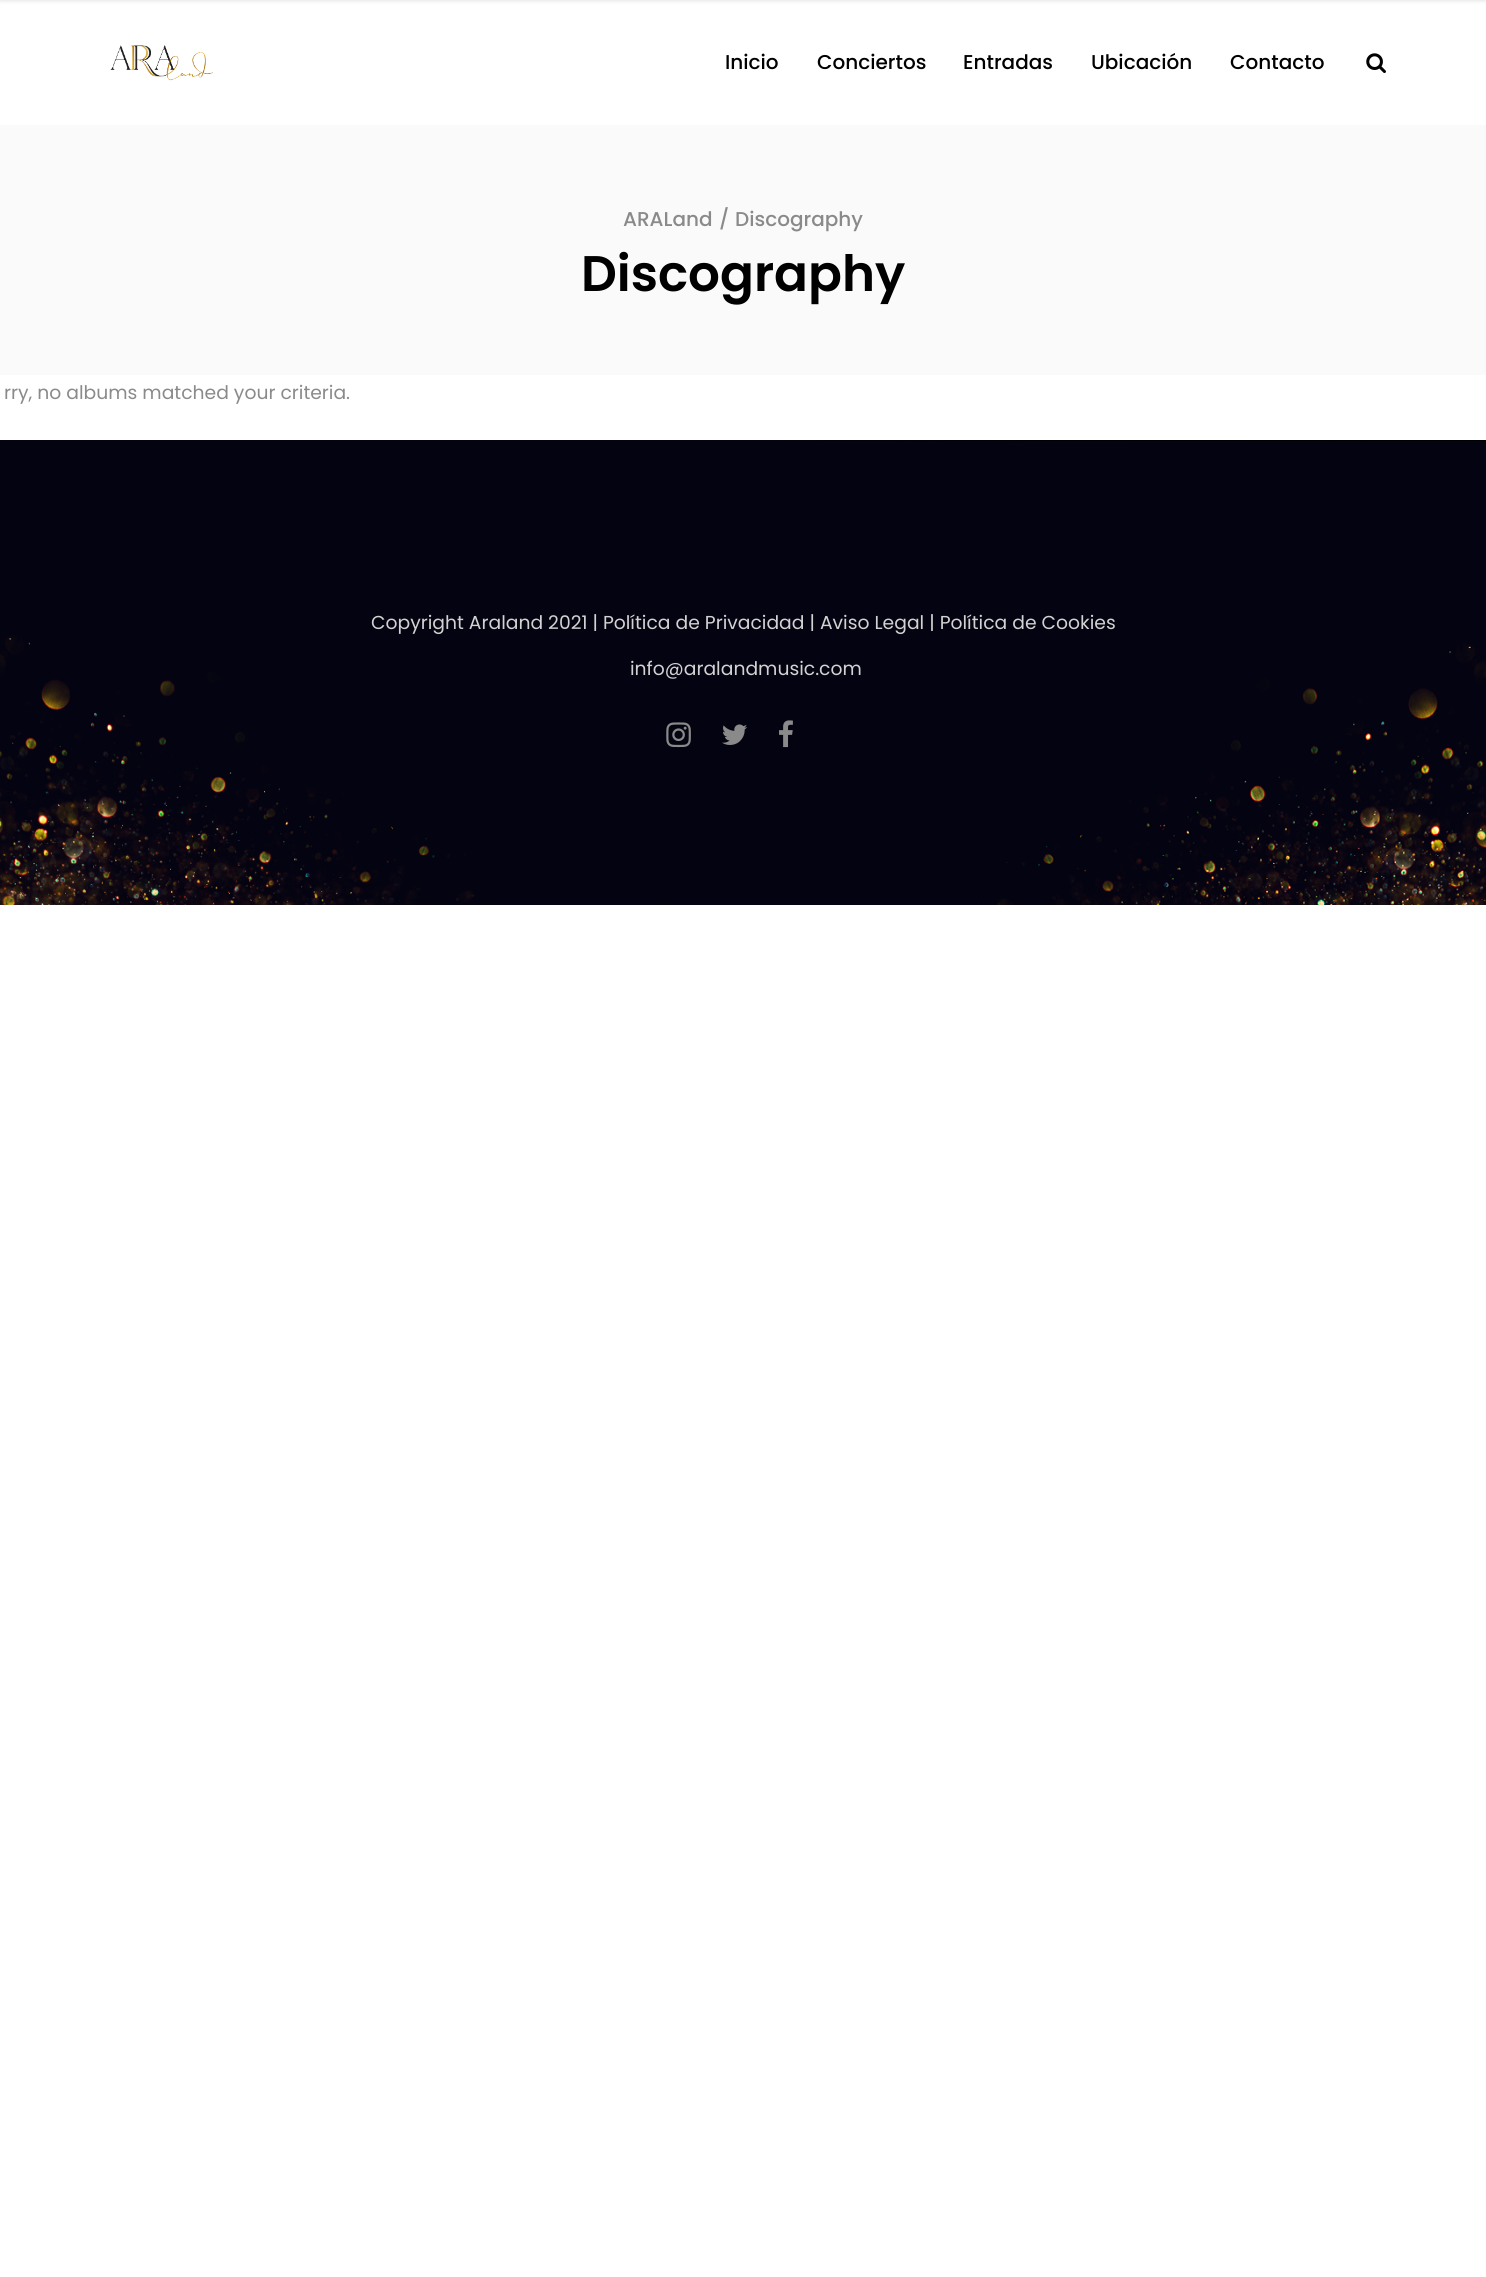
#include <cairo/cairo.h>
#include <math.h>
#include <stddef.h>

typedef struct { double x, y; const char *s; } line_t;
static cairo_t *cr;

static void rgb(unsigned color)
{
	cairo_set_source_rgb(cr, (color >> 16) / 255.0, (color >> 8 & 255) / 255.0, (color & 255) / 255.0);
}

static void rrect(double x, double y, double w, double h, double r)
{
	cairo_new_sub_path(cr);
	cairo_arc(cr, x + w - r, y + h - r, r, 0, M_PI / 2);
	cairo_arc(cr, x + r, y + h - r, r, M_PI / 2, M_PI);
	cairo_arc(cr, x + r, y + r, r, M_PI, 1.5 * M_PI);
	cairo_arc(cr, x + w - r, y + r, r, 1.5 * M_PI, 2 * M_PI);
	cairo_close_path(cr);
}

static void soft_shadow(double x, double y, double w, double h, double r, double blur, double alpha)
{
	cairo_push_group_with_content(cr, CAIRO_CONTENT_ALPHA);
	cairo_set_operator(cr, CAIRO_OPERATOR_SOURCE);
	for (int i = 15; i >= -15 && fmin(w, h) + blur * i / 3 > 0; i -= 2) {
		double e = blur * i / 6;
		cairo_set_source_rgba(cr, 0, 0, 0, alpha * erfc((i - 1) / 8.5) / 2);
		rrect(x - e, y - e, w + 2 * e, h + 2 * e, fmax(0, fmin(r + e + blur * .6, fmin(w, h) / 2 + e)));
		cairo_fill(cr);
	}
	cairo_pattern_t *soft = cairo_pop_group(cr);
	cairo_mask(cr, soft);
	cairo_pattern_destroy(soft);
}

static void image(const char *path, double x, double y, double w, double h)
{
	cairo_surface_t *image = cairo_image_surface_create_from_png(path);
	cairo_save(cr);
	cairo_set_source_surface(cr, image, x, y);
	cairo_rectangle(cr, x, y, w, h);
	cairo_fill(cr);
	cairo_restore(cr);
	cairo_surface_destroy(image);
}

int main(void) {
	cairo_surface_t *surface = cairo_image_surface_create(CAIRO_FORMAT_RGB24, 1486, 2277);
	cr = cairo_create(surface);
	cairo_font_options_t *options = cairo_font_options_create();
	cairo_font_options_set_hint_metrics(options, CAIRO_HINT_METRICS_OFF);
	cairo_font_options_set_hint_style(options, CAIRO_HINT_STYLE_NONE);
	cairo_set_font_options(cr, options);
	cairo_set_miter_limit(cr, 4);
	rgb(0xffffff);
	cairo_paint(cr);
	rgb(0x393939);
	soft_shadow(0, -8, 1486, 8, 0, 2.5, 0.2);
	image("img/1.png", 110, 45, 103, 36);
	image("img/2.png", 1366, 53, 20, 20);
	rgb(0xfafafa);
	cairo_rectangle(cr, 0, 125, 1486, 250);
	cairo_fill(cr);
	image("img/3.png", 0, 440, 1486, 465);
	image("img/4.png", 666, 722, 25, 26);
	image("img/5.png", 722, 724, 25, 21);
	image("img/6.png", 779, 720, 14, 28);
	cairo_select_font_face(cr, "Poppins Medium", CAIRO_FONT_SLANT_NORMAL, CAIRO_FONT_WEIGHT_NORMAL);
	cairo_set_font_size(cr, 20);
	rgb(0x000000);
	{
		static const line_t items[] = {
			{725, 69, "Inicio"},
			{817, 69, "Conciertos"},
			{963, 69, "Entradas"},
			{1091, 69, "Ubicación"},
			{1230, 69, "Contacto"},
		};
		for (size_t i = 0; i < sizeof items / sizeof *items; i++) {
			cairo_move_to(cr, items[i].x, items[i].y);
			cairo_show_text(cr, items[i].s);
		}
	}
	rgb(0x8a8a8a);
	{
		static const line_t items[] = {
			{623, 226, "ARALand"},
			{719, 226, "/"},
			{735, 226, "Discography"},
		};
		for (size_t i = 0; i < sizeof items / sizeof *items; i++) {
			cairo_move_to(cr, items[i].x, items[i].y);
			cairo_show_text(cr, items[i].s);
		}
	}
	cairo_select_font_face(cr, "Poppins SemiBold", CAIRO_FONT_SLANT_NORMAL, CAIRO_FONT_WEIGHT_NORMAL);
	cairo_set_font_size(cr, 50);
	rgb(0x000000);
	cairo_move_to(cr, 581, 291);
	cairo_show_text(cr, "Discography");
	cairo_select_font_face(cr, "Poppins", CAIRO_FONT_SLANT_NORMAL, CAIRO_FONT_WEIGHT_NORMAL);
	cairo_set_font_size(cr, 18.75);
	rgb(0x8a8a8a);
	cairo_move_to(cr, 4, 399);
	cairo_show_text(cr, "rry, no albums matched your criteria.");
	rgb(0xd2d2d2);
	cairo_move_to(cr, 371, 629);
	cairo_show_text(cr, "Copyright Araland 2021 | Política de Privacidad | Aviso Legal | Política de Cookies");
	cairo_move_to(cr, 630, 675);
	cairo_show_text(cr, "info@aralandmusic.com");
	cairo_surface_write_to_png(surface, "page.png");
	cairo_font_options_destroy(options);
	cairo_destroy(cr);
	cairo_surface_destroy(surface);
	return 0;
}
